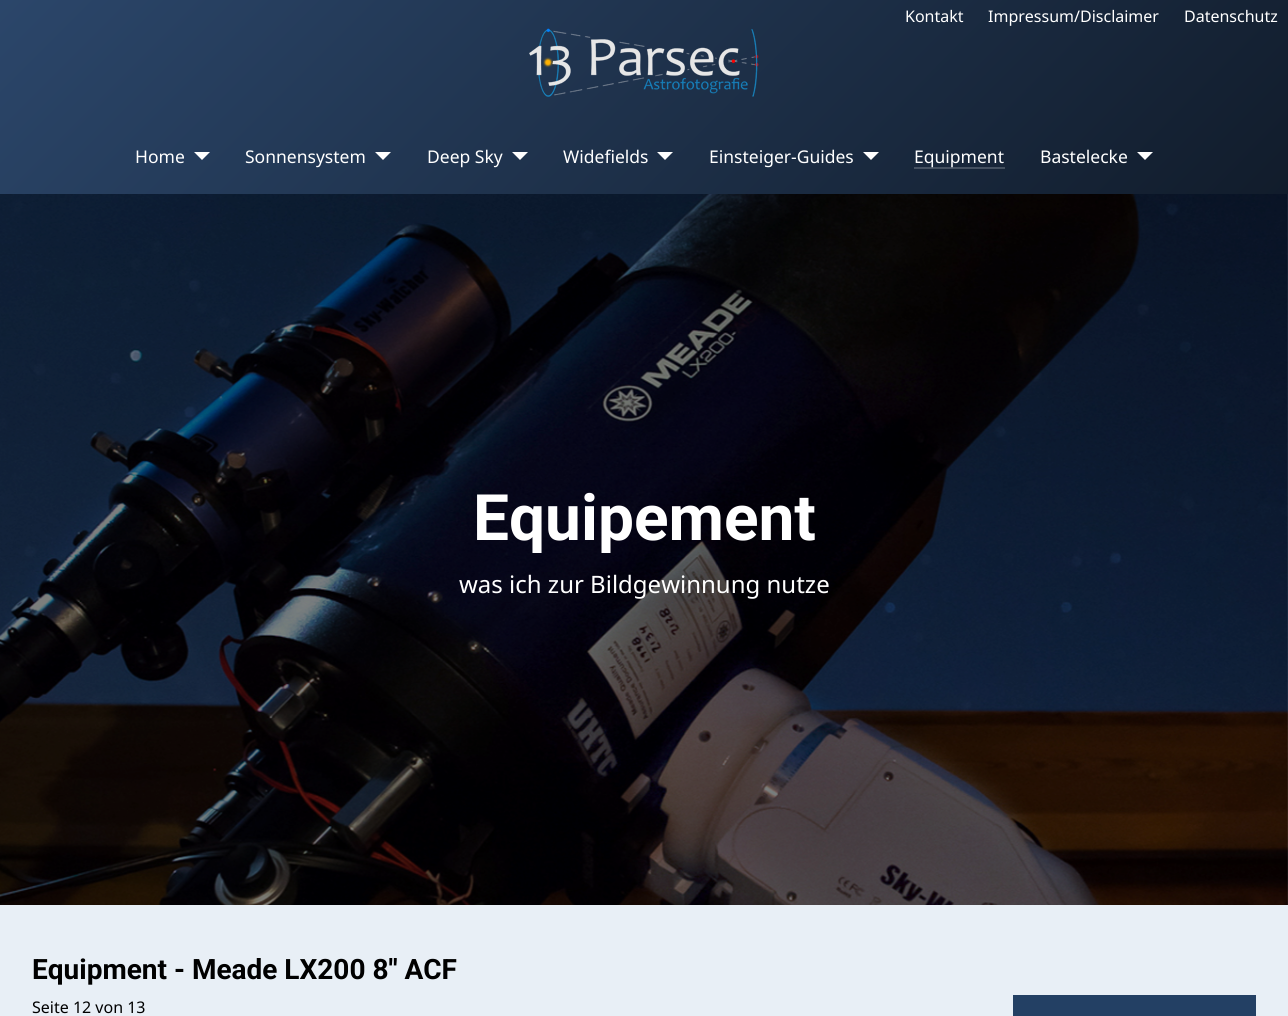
#include <cairo/cairo.h>
#include <math.h>
#include <stddef.h>

typedef struct { double x, y; const char *s; } line_t;
static cairo_t *cr;

static void rgb(unsigned color)
{
	cairo_set_source_rgb(cr, (color >> 16) / 255.0, (color >> 8 & 255) / 255.0, (color & 255) / 255.0);
}

static void image(const char *path, double x, double y, double w, double h)
{
	cairo_surface_t *image = cairo_image_surface_create_from_png(path);
	cairo_save(cr);
	cairo_set_source_surface(cr, image, x, y);
	cairo_rectangle(cr, x, y, w, h);
	cairo_fill(cr);
	cairo_restore(cr);
	cairo_surface_destroy(image);
}

int main(void) {
	cairo_surface_t *surface = cairo_image_surface_create(CAIRO_FORMAT_RGB24, 1288, 1016);
	cr = cairo_create(surface);
	cairo_font_options_t *options = cairo_font_options_create();
	cairo_font_options_set_hint_metrics(options, CAIRO_HINT_METRICS_OFF);
	cairo_font_options_set_hint_style(options, CAIRO_HINT_STYLE_NONE);
	cairo_set_font_options(cr, options);
	cairo_set_miter_limit(cr, 4);
	cairo_pattern_t *gradient;
	rgb(0xe8eff6);
	cairo_paint(cr);
	gradient = cairo_pattern_create_linear(273, -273, 1015, 468);
	cairo_pattern_add_color_stop_rgba(gradient, 0, 0.169, 0.275, 0.416, 1);
	cairo_pattern_add_color_stop_rgba(gradient, 1, 0.067, 0.11, 0.169, 1);
	cairo_set_source(cr, gradient);
	cairo_pattern_destroy(gradient);
	cairo_rectangle(cr, 0, 0, 1288, 194);
	cairo_fill(cr);
	image("img/1.png", 529, 28, 230, 69);
	rgb(0xffffff);
	cairo_new_path(cr);
	cairo_move_to(cr, 194, 152);
	cairo_line_to(cr, 210, 152);
	cairo_line_to(cr, 202, 160);
	cairo_close_path(cr);
	cairo_fill(cr);
	cairo_new_path(cr);
	cairo_move_to(cr, 375, 152);
	cairo_line_to(cr, 391, 152);
	cairo_line_to(cr, 383, 160);
	cairo_close_path(cr);
	cairo_fill(cr);
	cairo_new_path(cr);
	cairo_move_to(cr, 512, 152);
	cairo_line_to(cr, 528, 152);
	cairo_line_to(cr, 520, 160);
	cairo_close_path(cr);
	cairo_fill(cr);
	cairo_new_path(cr);
	cairo_move_to(cr, 657, 152);
	cairo_line_to(cr, 673, 152);
	cairo_line_to(cr, 665, 160);
	cairo_close_path(cr);
	cairo_fill(cr);
	cairo_new_path(cr);
	cairo_move_to(cr, 863, 152);
	cairo_line_to(cr, 879, 152);
	cairo_line_to(cr, 871, 160);
	cairo_close_path(cr);
	cairo_fill(cr);
	cairo_new_path(cr);
	cairo_move_to(cr, 1137, 152);
	cairo_line_to(cr, 1153, 152);
	cairo_line_to(cr, 1145, 160);
	cairo_close_path(cr);
	cairo_fill(cr);
	image("img/2.png", 0, 194, 1288, 711);
	rgb(0x234064);
	cairo_rectangle(cr, 1013, 995, 243, 21);
	cairo_fill(cr);
	cairo_select_font_face(cr, "Noto Sans", CAIRO_FONT_SLANT_NORMAL, CAIRO_FONT_WEIGHT_NORMAL);
	cairo_set_font_size(cr, 16);
	rgb(0xffffff);
	{
		static const line_t items[] = {
			{905, 22, "Kontakt"},
			{988, 22, "Impressum/Disclaimer"},
			{1184, 22, "Datenschutz"},
		};
		for (size_t i = 0; i < sizeof items / sizeof *items; i++) {
			cairo_move_to(cr, items[i].x, items[i].y);
			cairo_show_text(cr, items[i].s);
		}
	}
	cairo_set_font_size(cr, 17.5);
	{
		static const line_t items[] = {
			{135, 163, "Home"},
			{245, 163, "Sonnensystem"},
			{427, 163, "Deep Sky"},
			{563, 163, "Widefields"},
			{709, 163, "Einsteiger-Guides"},
			{914, 163, "Equipment"},
		};
		for (size_t i = 0; i < sizeof items / sizeof *items; i++) {
			cairo_move_to(cr, items[i].x, items[i].y);
			cairo_show_text(cr, items[i].s);
		}
	}
	cairo_set_source_rgba(cr, 1, 1, 1, 0.2);
	cairo_rectangle(cr, 914, 167, 91, 2);
	cairo_fill(cr);
	rgb(0xffffff);
	cairo_move_to(cr, 1040, 163);
	cairo_show_text(cr, "Bastelecke");
	cairo_select_font_face(cr, "Roboto", CAIRO_FONT_SLANT_NORMAL, CAIRO_FONT_WEIGHT_BOLD);
	cairo_set_font_size(cr, 64);
	cairo_move_to(cr, 473, 540);
	cairo_show_text(cr, "Equipement");
	cairo_select_font_face(cr, "Noto Sans", CAIRO_FONT_SLANT_NORMAL, CAIRO_FONT_WEIGHT_NORMAL);
	cairo_set_font_size(cr, 24);
	cairo_move_to(cr, 459, 593);
	cairo_show_text(cr, "was ich zur Bildgewinnung nutze");
	cairo_select_font_face(cr, "Roboto", CAIRO_FONT_SLANT_NORMAL, CAIRO_FONT_WEIGHT_BOLD);
	cairo_set_font_size(cr, 28);
	rgb(0x000000);
	cairo_move_to(cr, 32, 979);
	cairo_show_text(cr, "Equipment - Meade LX200 8'' ACF");
	cairo_select_font_face(cr, "Noto Sans", CAIRO_FONT_SLANT_NORMAL, CAIRO_FONT_WEIGHT_NORMAL);
	cairo_set_font_size(cr, 16);
	cairo_move_to(cr, 32, 1013);
	cairo_show_text(cr, "Seite 12 von 13");
	cairo_surface_write_to_png(surface, "page.png");
	cairo_font_options_destroy(options);
	cairo_destroy(cr);
	cairo_surface_destroy(surface);
	return 0;
}
